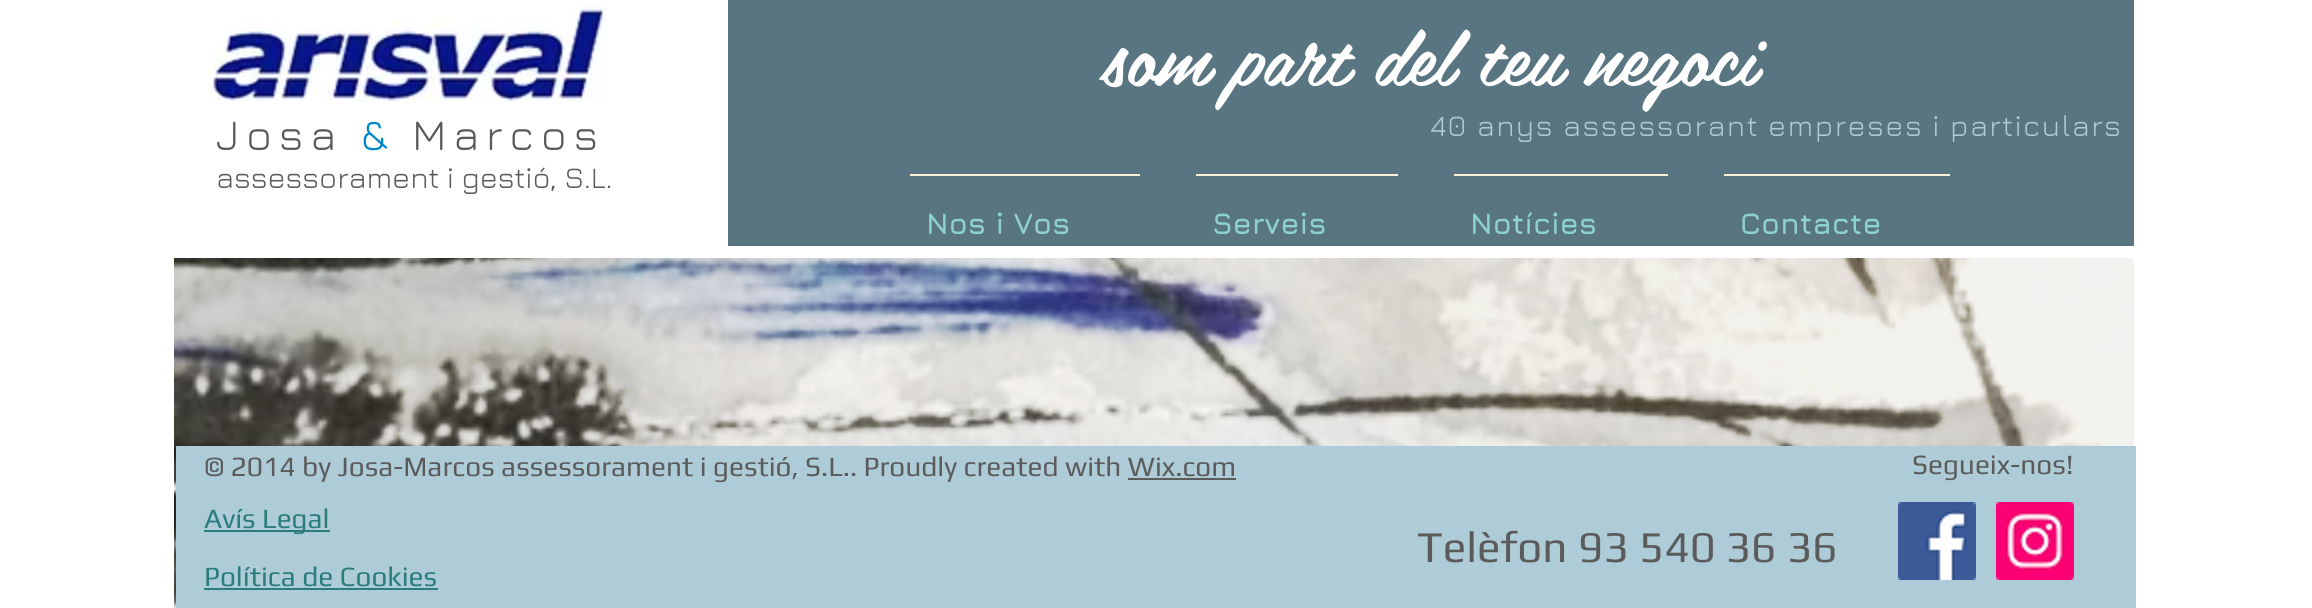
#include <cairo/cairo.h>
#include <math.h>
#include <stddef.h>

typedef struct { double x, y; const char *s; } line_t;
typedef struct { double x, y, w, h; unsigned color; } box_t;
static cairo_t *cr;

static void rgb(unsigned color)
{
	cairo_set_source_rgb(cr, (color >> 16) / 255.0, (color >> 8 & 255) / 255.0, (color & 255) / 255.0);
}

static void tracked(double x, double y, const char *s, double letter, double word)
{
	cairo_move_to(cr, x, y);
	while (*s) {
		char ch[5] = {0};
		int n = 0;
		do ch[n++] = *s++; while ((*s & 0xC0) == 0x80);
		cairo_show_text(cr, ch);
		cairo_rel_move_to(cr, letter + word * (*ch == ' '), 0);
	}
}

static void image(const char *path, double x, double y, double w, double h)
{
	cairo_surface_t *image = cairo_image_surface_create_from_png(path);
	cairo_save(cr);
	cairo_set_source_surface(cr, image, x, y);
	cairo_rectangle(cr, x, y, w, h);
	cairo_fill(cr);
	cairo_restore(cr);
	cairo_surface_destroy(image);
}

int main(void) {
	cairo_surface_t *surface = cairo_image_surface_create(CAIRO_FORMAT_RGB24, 2312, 608);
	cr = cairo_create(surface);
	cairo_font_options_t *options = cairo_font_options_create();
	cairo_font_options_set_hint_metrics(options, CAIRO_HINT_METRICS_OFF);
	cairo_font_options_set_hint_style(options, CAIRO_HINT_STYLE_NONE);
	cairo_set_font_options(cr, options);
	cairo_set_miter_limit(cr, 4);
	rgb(0xffffff);
	cairo_paint(cr);
	image("img/1.png", 208, 5, 399, 97);
	{
		static const box_t items[] = {
			{728, 0, 1406, 246, 0x597581},
			{910, 174, 230, 2, 0xf7f0d7},
			{1196, 174, 202, 2, 0xf7f0d7},
			{1454, 174, 214, 2, 0xf7f0d7},
			{1724, 174, 226, 2, 0xf7f0d7},
		};
		for (size_t i = 0; i < sizeof items / sizeof *items; i++) {
			rgb(items[i].color);
			cairo_rectangle(cr, items[i].x, items[i].y, items[i].w, items[i].h);
			cairo_fill(cr);
		}
	}
	image("img/2.png", 174, 258, 1960, 350);
	{
		static const box_t items[] = {
			{176, 446, 1960, 162, 0xaeccd7},
			{1128, 478, 108, 2, 0x5b5b5b},
			{204, 530, 126, 2, 0x2a7c7d},
		};
		for (size_t i = 0; i < sizeof items / sizeof *items; i++) {
			rgb(items[i].color);
			cairo_rectangle(cr, items[i].x, items[i].y, items[i].w, items[i].h);
			cairo_fill(cr);
		}
	}
	image("img/3.png", 1898, 502, 78, 78);
	image("img/4.png", 1996, 502, 78, 78);
	cairo_rectangle(cr, 204, 588, 234, 2);
	cairo_fill(cr);
	cairo_select_font_face(cr, "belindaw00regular", CAIRO_FONT_SLANT_NORMAL, CAIRO_FONT_WEIGHT_NORMAL);
	cairo_set_font_size(cr, 76);
	rgb(0xffffff);
	cairo_move_to(cr, 1103, 86);
	cairo_show_text(cr, "som part del teu negoci");
	cairo_select_font_face(cr, "Jura", CAIRO_FONT_SLANT_NORMAL, CAIRO_FONT_WEIGHT_NORMAL);
	cairo_set_font_size(cr, 30);
	rgb(0xaeccd7);
	tracked(1430, 136, "40 anys assessorant empreses i particulars", 1.5, 0);
	cairo_select_font_face(cr, "Jura", CAIRO_FONT_SLANT_NORMAL, CAIRO_FONT_WEIGHT_BOLD);
	rgb(0x8dd1d2);
	{
		static const line_t items[] = {
			{926, 234, "Nos i Vos"},
			{1212, 234, "Serveis"},
			{1470, 234, "Notícies"},
			{1740, 234, "Contacte"},
		};
		for (size_t i = 0; i < sizeof items / sizeof *items; i++) {
			cairo_move_to(cr, items[i].x, items[i].y);
			cairo_show_text(cr, items[i].s);
		}
	}
	cairo_select_font_face(cr, "Jura", CAIRO_FONT_SLANT_NORMAL, CAIRO_FONT_WEIGHT_NORMAL);
	cairo_set_font_size(cr, 44);
	rgb(0x5b5b5b);
	tracked(216, 150, "Josa", 6.5, 0);
	rgb(0x0088cb);
	tracked(361, 150, "&", 6.5, 0);
	rgb(0x5b5b5b);
	tracked(412, 150, "Marcos", 6.5, 0);
	cairo_set_font_size(cr, 30);
	cairo_move_to(cr, 216, 188);
	cairo_show_text(cr, "assessorament i gestió, S.L.");
	cairo_select_font_face(cr, "Play", CAIRO_FONT_SLANT_NORMAL, CAIRO_FONT_WEIGHT_NORMAL);
	cairo_set_font_size(cr, 28);
	cairo_move_to(cr, 204, 476);
	cairo_show_text(cr, "© 2014 by Josa-Marcos assessorament i gestió, S.L.. Proudly created with Wix.com");
	cairo_move_to(cr, 1912, 474);
	cairo_show_text(cr, "Segueix-nos!");
	rgb(0x2a7c7d);
	cairo_move_to(cr, 204, 528);
	cairo_show_text(cr, "Avís Legal");
	cairo_set_font_size(cr, 44);
	rgb(0x5b5b5b);
	cairo_move_to(cr, 1417, 562);
	cairo_show_text(cr, "Telèfon 93 540 36 36");
	cairo_set_font_size(cr, 28);
	rgb(0x2a7c7d);
	cairo_move_to(cr, 204, 586);
	cairo_show_text(cr, "Política de Cookies");
	cairo_surface_write_to_png(surface, "page.png");
	cairo_font_options_destroy(options);
	cairo_destroy(cr);
	cairo_surface_destroy(surface);
	return 0;
}
